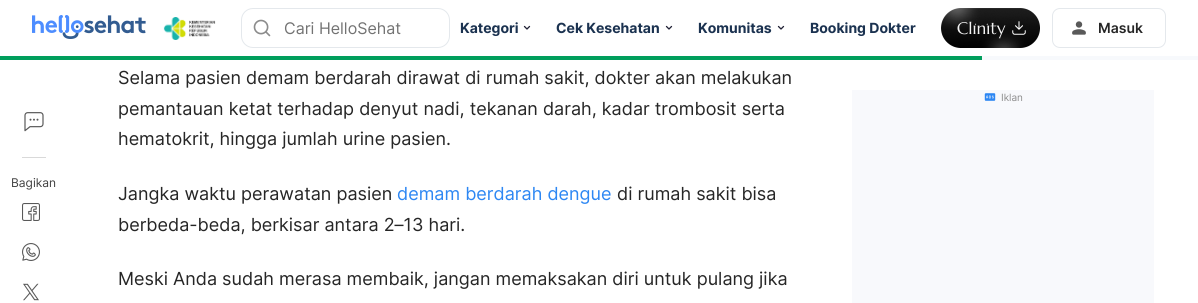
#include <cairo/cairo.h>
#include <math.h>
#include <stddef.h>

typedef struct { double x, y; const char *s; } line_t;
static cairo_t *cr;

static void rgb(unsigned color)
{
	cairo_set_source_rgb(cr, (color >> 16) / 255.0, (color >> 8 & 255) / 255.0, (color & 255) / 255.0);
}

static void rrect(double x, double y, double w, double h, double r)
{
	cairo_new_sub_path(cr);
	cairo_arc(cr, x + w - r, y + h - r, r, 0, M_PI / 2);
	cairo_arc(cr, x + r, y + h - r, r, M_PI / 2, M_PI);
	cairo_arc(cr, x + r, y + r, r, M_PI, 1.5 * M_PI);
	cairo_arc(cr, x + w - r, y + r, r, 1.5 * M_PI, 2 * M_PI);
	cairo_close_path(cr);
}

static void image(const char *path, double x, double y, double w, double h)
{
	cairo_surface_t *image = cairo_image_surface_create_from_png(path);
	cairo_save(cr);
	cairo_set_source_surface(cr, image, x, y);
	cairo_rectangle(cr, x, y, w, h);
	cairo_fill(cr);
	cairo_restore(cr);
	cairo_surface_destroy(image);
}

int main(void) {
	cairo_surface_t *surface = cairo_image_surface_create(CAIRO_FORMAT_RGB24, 1198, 303);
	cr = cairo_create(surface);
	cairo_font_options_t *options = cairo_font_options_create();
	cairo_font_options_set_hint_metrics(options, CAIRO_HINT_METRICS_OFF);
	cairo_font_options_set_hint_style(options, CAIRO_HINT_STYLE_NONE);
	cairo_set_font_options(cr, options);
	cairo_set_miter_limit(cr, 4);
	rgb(0xffffff);
	cairo_paint(cr);
	image("img/1.png", 32, 15, 114, 24);
	image("img/2.png", 163, 17, 53, 23);
	rrect(241.5, 8.5, 208, 39, 11.5);
	rgb(0xe4e8ec);
	cairo_set_line_width(cr, 1);
	cairo_stroke(cr);
	image("img/3.png", 253, 19, 18, 18);
	cairo_new_path(cr);
	cairo_move_to(cr, 529.5, 26.5);
	cairo_line_to(cr, 527, 29);
	cairo_line_to(cr, 524.5, 26.5);
	rgb(0x202135);
	cairo_set_line_width(cr, 1.3);
	cairo_set_line_cap(cr, CAIRO_LINE_CAP_ROUND);
	cairo_set_line_join(cr, CAIRO_LINE_JOIN_ROUND);
	cairo_stroke(cr);
	cairo_new_path(cr);
	cairo_move_to(cr, 671.5, 26.5);
	cairo_line_to(cr, 669, 29);
	cairo_line_to(cr, 666.5, 26.5);
	cairo_stroke(cr);
	cairo_new_path(cr);
	cairo_move_to(cr, 783.5, 26.5);
	cairo_line_to(cr, 781, 29);
	cairo_line_to(cr, 778.5, 26.5);
	cairo_stroke(cr);
	image("img/4.png", 941, 8, 99, 40);
	rrect(1052.5, 8.5, 113, 39, 7.5);
	rgb(0xe4e8ec);
	cairo_set_line_width(cr, 1);
	cairo_set_line_cap(cr, CAIRO_LINE_CAP_BUTT);
	cairo_set_line_join(cr, CAIRO_LINE_JOIN_MITER);
	cairo_stroke(cr);
	image("img/5.png", 1072, 21, 14, 14);
	rgb(0xf7f9fc);
	cairo_rectangle(cr, 982, 56, 216, 4);
	cairo_fill(cr);
	rgb(0x009e5c);
	cairo_rectangle(cr, 0, 56, 982, 4);
	cairo_fill(cr);
	image("img/6.png", 24, 112, 20, 20);
	rgb(0xd9d9d9);
	cairo_rectangle(cr, 22, 157, 24, 1);
	cairo_fill(cr);
	image("img/7.png", 22, 203, 18, 18);
	image("img/8.png", 22, 243, 18, 18);
	image("img/9.png", 23, 283, 16, 18);
	rgb(0xf8f9fc);
	cairo_rectangle(cr, 852, 90, 302, 213);
	cairo_fill(cr);
	image("img/10.png", 984, 93, 12, 8);
	cairo_select_font_face(cr, "Inter", CAIRO_FONT_SLANT_NORMAL, CAIRO_FONT_WEIGHT_NORMAL);
	cairo_set_font_size(cr, 16);
	rgb(0x737373);
	cairo_move_to(cr, 284, 34);
	cairo_show_text(cr, "Cari HelloSehat");
	cairo_select_font_face(cr, "Inter", CAIRO_FONT_SLANT_NORMAL, CAIRO_FONT_WEIGHT_BOLD);
	cairo_set_font_size(cr, 14);
	rgb(0x1b3250);
	{
		static const line_t items[] = {
			{460, 33, "Kategori"},
			{556, 33, "Cek Kesehatan"},
			{698, 33, "Komunitas"},
			{810, 33, "Booking Dokter"},
		};
		for (size_t i = 0; i < sizeof items / sizeof *items; i++) {
			cairo_move_to(cr, items[i].x, items[i].y);
			cairo_show_text(cr, items[i].s);
		}
	}
	cairo_select_font_face(cr, "Inter SemiBold", CAIRO_FONT_SLANT_NORMAL, CAIRO_FONT_WEIGHT_NORMAL);
	rgb(0x262626);
	cairo_move_to(cr, 1098, 33);
	cairo_show_text(cr, "Masuk");
	cairo_select_font_face(cr, "Inter", CAIRO_FONT_SLANT_NORMAL, CAIRO_FONT_WEIGHT_NORMAL);
	cairo_set_font_size(cr, 12);
	rgb(0x404040);
	cairo_move_to(cr, 11, 187);
	cairo_show_text(cr, "Bagikan");
	cairo_set_font_size(cr, 18);
	rgb(0x262626);
	{
		static const line_t items[] = {
			{118, 84, "Selama pasien demam berdarah dirawat di rumah sakit, dokter akan melakukan"},
			{118, 115, "pemantauan ketat terhadap denyut nadi, tekanan darah, kadar trombosit serta"},
			{118, 145, "hematokrit, hingga jumlah urine pasien."},
			{118, 200, "Jangka waktu perawatan pasien"},
		};
		for (size_t i = 0; i < sizeof items / sizeof *items; i++) {
			cairo_move_to(cr, items[i].x, items[i].y);
			cairo_show_text(cr, items[i].s);
		}
	}
	rgb(0x2d87f3);
	cairo_move_to(cr, 397, 200);
	cairo_show_text(cr, "demam berdarah dengue");
	rgb(0x262626);
	{
		static const line_t items[] = {
			{617, 200, "di rumah sakit bisa"},
			{118, 231, "berbeda-beda, berkisar antara 2–13 hari."},
			{118, 285, "Meski Anda sudah merasa membaik, jangan memaksakan diri untuk pulang jika"},
		};
		for (size_t i = 0; i < sizeof items / sizeof *items; i++) {
			cairo_move_to(cr, items[i].x, items[i].y);
			cairo_show_text(cr, items[i].s);
		}
	}
	cairo_set_font_size(cr, 10);
	rgb(0x8c8c8c);
	cairo_move_to(cr, 1001, 101);
	cairo_show_text(cr, "Iklan");
	cairo_surface_write_to_png(surface, "page.png");
	cairo_font_options_destroy(options);
	cairo_destroy(cr);
	cairo_surface_destroy(surface);
	return 0;
}
